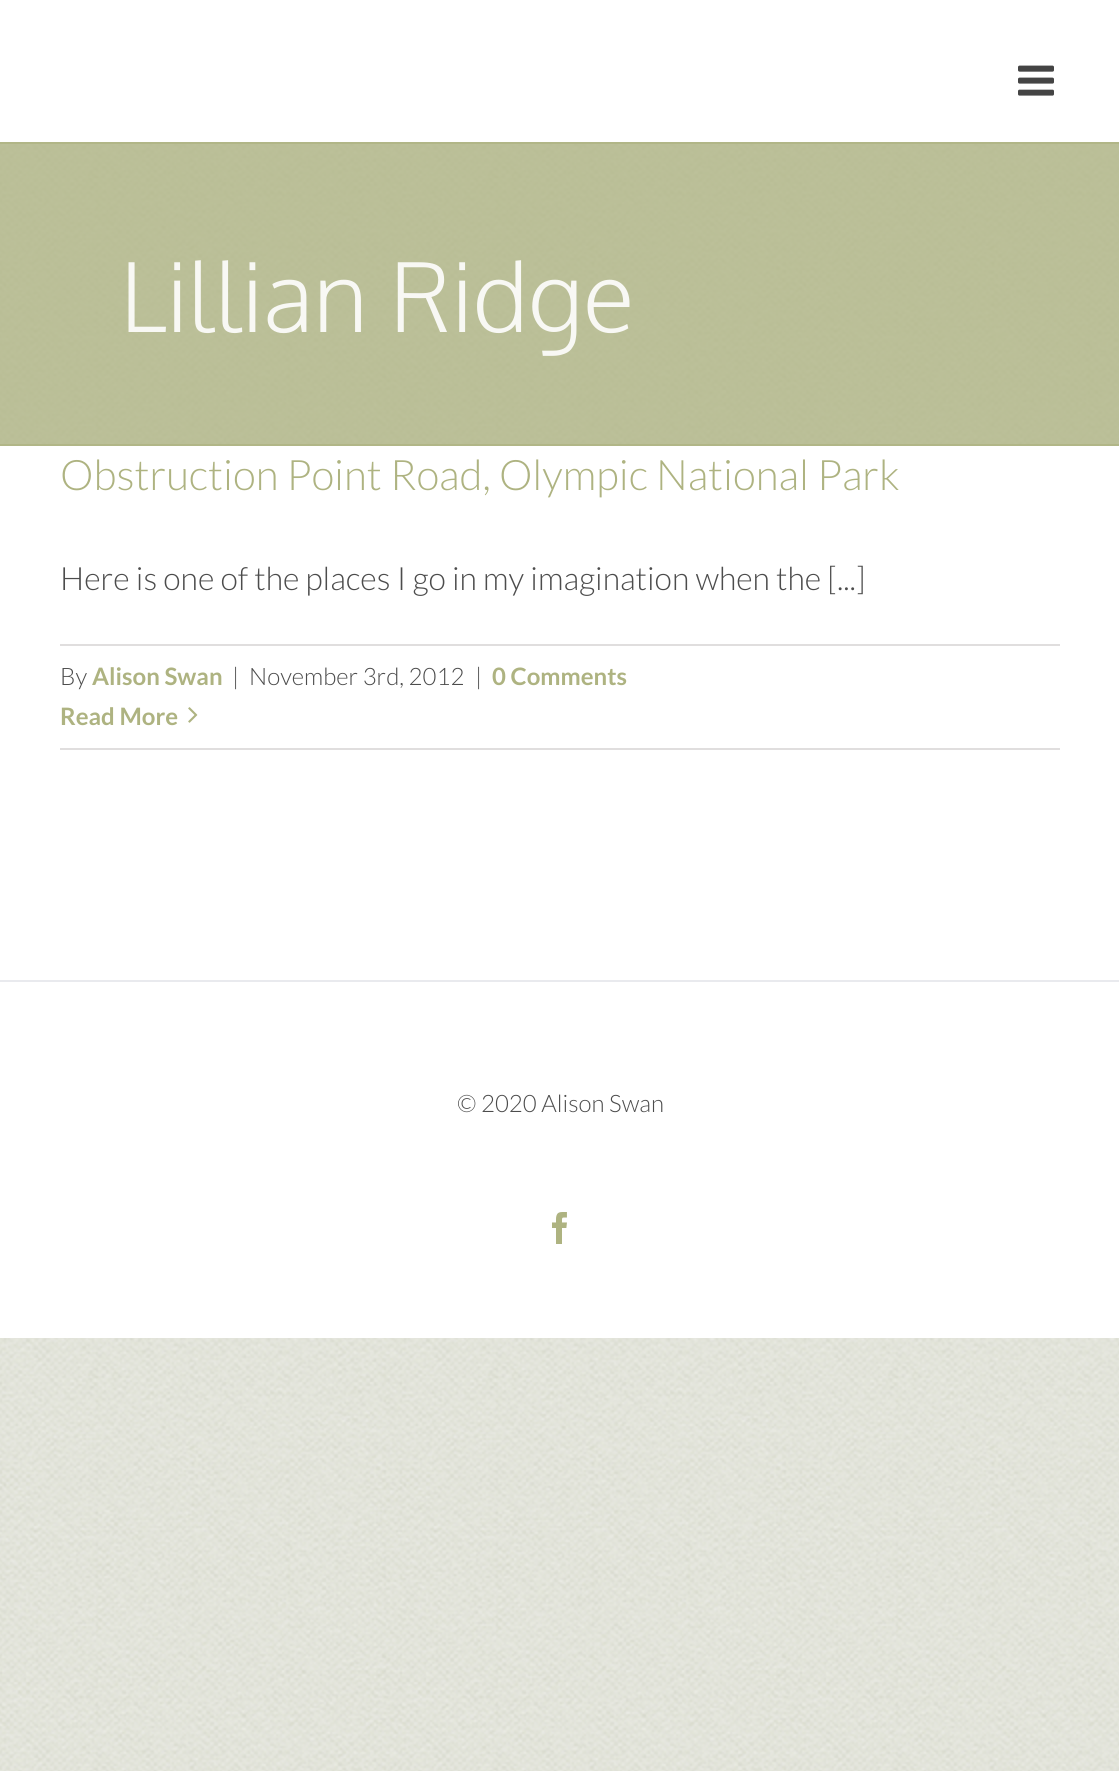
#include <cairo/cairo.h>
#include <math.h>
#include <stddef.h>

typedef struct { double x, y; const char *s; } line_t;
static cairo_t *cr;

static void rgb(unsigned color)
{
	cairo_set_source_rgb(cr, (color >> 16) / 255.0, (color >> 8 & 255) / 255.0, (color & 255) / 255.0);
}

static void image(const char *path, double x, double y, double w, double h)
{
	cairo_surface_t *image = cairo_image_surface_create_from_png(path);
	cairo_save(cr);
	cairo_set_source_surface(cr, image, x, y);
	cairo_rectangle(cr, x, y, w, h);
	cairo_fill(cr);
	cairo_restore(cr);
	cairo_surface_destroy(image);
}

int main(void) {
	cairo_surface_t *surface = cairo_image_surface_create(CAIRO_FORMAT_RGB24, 1119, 1771);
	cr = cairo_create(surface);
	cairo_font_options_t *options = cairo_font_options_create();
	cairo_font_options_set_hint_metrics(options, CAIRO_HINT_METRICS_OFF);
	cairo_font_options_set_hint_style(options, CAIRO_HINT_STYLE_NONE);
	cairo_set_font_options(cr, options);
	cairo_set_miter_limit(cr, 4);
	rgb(0xffffff);
	cairo_paint(cr);
	image("img/1.png", 0, 142, 1119, 1629);
	image("img/2.png", 1018, 65, 36, 31);
	cairo_set_source_rgba(cr, 0.682, 0.702, 0.506, 0.75);
	cairo_rectangle(cr, 0, 142, 1119, 304);
	cairo_fill(cr);
	cairo_rectangle(cr, 0, 142, 1119, 2);
	cairo_fill(cr);
	cairo_rectangle(cr, 0, 444, 1119, 2);
	cairo_fill(cr);
	rgb(0xffffff);
	cairo_rectangle(cr, 0, 446, 1119, 534);
	cairo_fill(cr);
	rgb(0xe0dede);
	cairo_rectangle(cr, 60, 644, 1000, 2);
	cairo_fill(cr);
	cairo_rectangle(cr, 60, 748, 1000, 2);
	cairo_fill(cr);
	image("img/3.png", 188, 707, 10, 16);
	rgb(0xffffff);
	cairo_rectangle(cr, 0, 982, 1119, 356);
	cairo_fill(cr);
	rgb(0xe9eaee);
	cairo_rectangle(cr, 0, 980, 1119, 2);
	cairo_fill(cr);
	image("img/4.png", 552, 1212, 15, 32);
	cairo_select_font_face(cr, "Oxygen Light", CAIRO_FONT_SLANT_NORMAL, CAIRO_FONT_WEIGHT_NORMAL);
	cairo_set_font_size(cr, 96);
	rgb(0xf8f8f4);
	cairo_move_to(cr, 120, 332);
	cairo_show_text(cr, "Lillian Ridge");
	cairo_select_font_face(cr, "Lato Light", CAIRO_FONT_SLANT_NORMAL, CAIRO_FONT_WEIGHT_NORMAL);
	cairo_set_font_size(cr, 42);
	rgb(0xaeb381);
	cairo_move_to(cr, 60, 490);
	cairo_show_text(cr, "Obstruction Point Road, Olympic National Park");
	cairo_set_font_size(cr, 32);
	rgb(0x4c4c4c);
	cairo_move_to(cr, 60, 590);
	cairo_show_text(cr, "Here is one of the places I go in my imagination when the [...]");
	cairo_set_font_size(cr, 24);
	cairo_move_to(cr, 60, 685);
	cairo_show_text(cr, "By");
	cairo_select_font_face(cr, "Lato", CAIRO_FONT_SLANT_NORMAL, CAIRO_FONT_WEIGHT_BOLD);
	rgb(0xaeb381);
	cairo_move_to(cr, 92, 685);
	cairo_show_text(cr, "Alison Swan");
	cairo_select_font_face(cr, "Lato Light", CAIRO_FONT_SLANT_NORMAL, CAIRO_FONT_WEIGHT_NORMAL);
	rgb(0x4c4c4c);
	{
		static const line_t items[] = {
			{232, 685, "|"},
			{249, 685, "November 3rd, 2012"},
			{475, 685, "|"},
		};
		for (size_t i = 0; i < sizeof items / sizeof *items; i++) {
			cairo_move_to(cr, items[i].x, items[i].y);
			cairo_show_text(cr, items[i].s);
		}
	}
	cairo_select_font_face(cr, "Lato", CAIRO_FONT_SLANT_NORMAL, CAIRO_FONT_WEIGHT_BOLD);
	rgb(0xaeb381);
	cairo_move_to(cr, 492, 685);
	cairo_show_text(cr, "0 Comments");
	cairo_move_to(cr, 60, 725);
	cairo_show_text(cr, "Read More");
	cairo_select_font_face(cr, "Lato Light", CAIRO_FONT_SLANT_NORMAL, CAIRO_FONT_WEIGHT_NORMAL);
	rgb(0x4c4c4c);
	cairo_move_to(cr, 457, 1112);
	cairo_show_text(cr, "© 2020 Alison Swan");
	cairo_surface_write_to_png(surface, "page.png");
	cairo_font_options_destroy(options);
	cairo_destroy(cr);
	cairo_surface_destroy(surface);
	return 0;
}
